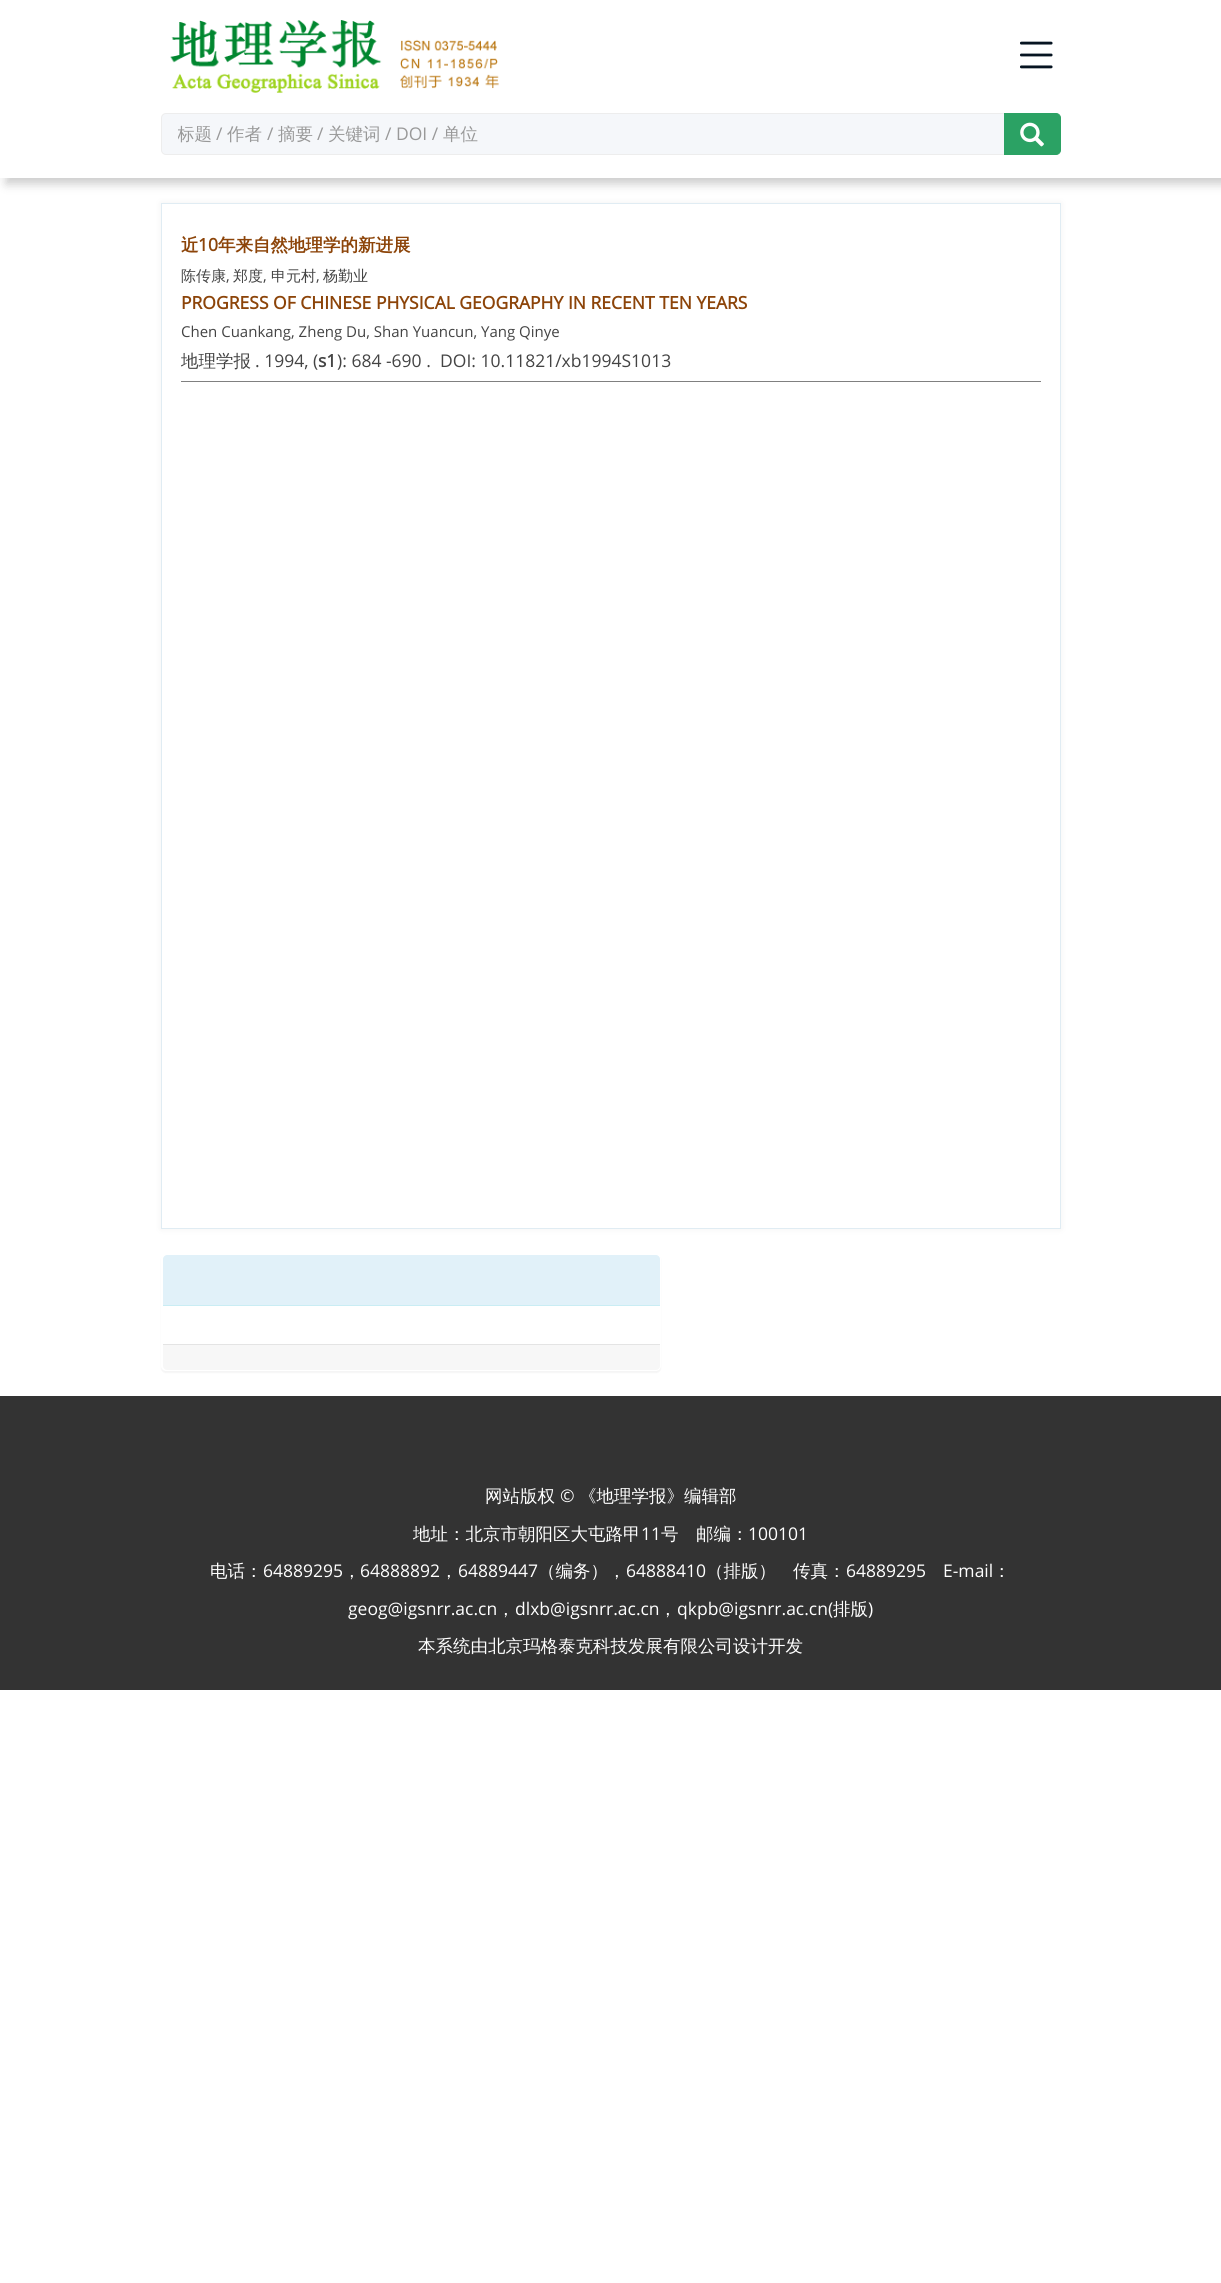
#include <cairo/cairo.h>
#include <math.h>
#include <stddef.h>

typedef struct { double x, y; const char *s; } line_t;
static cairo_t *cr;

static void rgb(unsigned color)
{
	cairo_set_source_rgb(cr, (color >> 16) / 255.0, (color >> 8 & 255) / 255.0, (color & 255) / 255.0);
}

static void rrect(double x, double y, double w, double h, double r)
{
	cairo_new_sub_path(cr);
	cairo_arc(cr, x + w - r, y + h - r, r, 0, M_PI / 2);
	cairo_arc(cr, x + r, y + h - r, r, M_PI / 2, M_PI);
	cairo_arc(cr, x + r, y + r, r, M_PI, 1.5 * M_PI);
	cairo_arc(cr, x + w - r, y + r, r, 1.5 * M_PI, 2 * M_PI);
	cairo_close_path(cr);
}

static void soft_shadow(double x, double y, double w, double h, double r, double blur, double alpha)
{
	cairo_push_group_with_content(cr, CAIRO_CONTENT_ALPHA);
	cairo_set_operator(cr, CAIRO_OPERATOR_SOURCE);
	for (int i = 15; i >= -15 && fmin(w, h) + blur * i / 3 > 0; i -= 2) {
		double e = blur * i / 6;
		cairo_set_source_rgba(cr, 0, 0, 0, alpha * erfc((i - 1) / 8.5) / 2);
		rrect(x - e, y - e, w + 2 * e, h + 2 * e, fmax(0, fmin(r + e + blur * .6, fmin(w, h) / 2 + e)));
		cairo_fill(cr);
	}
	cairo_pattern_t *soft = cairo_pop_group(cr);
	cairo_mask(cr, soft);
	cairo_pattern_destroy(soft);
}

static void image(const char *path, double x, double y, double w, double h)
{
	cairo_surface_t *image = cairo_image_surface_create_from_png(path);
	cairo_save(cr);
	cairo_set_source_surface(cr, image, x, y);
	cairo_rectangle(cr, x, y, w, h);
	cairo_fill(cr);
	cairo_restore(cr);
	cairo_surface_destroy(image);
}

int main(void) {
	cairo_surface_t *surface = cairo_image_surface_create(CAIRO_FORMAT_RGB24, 1221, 2283);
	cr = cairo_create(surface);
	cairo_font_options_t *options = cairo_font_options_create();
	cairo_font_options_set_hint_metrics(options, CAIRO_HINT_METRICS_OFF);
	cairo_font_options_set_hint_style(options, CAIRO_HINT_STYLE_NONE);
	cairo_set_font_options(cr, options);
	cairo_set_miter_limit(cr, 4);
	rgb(0xffffff);
	cairo_paint(cr);
	cairo_save(cr);
	cairo_set_fill_rule(cr, CAIRO_FILL_RULE_EVEN_ODD);
	cairo_new_path(cr);
	cairo_move_to(cr, 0, 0);
	cairo_line_to(cr, 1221, 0);
	cairo_line_to(cr, 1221, 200);
	cairo_line_to(cr, 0, 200);
	cairo_close_path(cr);
	cairo_move_to(cr, 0, 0);
	cairo_line_to(cr, 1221, 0);
	cairo_line_to(cr, 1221, 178);
	cairo_line_to(cr, 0, 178);
	cairo_close_path(cr);
	cairo_clip(cr);
	rgb(0x000000);
	soft_shadow(6, 6, 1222, 178, 0, 5, 0.2);
	cairo_restore(cr);
	image("img/1.png", 170, 20, 329, 73);
	image("img/2.png", 1020, 41, 33, 28);
	rgb(0xf5f7fa);
	rrect(161.5, 113.5, 846, 41, 4.5);
	cairo_fill_preserve(cr);
	rgb(0xededed);
	cairo_set_line_width(cr, 1);
	cairo_stroke(cr);
	rgb(0x2ba264);
	cairo_new_path(cr);
	cairo_move_to(cr, 1004.5, 113.5);
	cairo_line_to(cr, 1056, 113.5);
	cairo_curve_to(cr, 1058.5, 113.5, 1060.5, 115.5, 1060.5, 118);
	cairo_line_to(cr, 1060.5, 150);
	cairo_curve_to(cr, 1060.5, 152.5, 1058.5, 154.5, 1056, 154.5);
	cairo_line_to(cr, 1004.5, 154.5);
	cairo_close_path(cr);
	cairo_fill_preserve(cr);
	cairo_stroke(cr);
	image("img/3.png", 1020, 122, 24, 25);
	rgb(0x7f7f7f);
	soft_shadow(161, 203, 900, 1026, 0, 3, 0.1);
	rgb(0xffffff);
	cairo_rectangle(cr, 161.5, 203.5, 899, 1025);
	cairo_fill_preserve(cr);
	rgb(0xe0ecf3);
	cairo_stroke(cr);
	rgb(0x808080);
	cairo_rectangle(cr, 181, 381, 860, 1);
	cairo_fill(cr);
	rgb(0x333333);
	soft_shadow(161, 1255, 500, 118, 5, 0.5, 0.05);
	rgb(0xffffff);
	rrect(161, 1254, 500, 117, 5);
	cairo_fill(cr);
	rgb(0xe1f1f9);
	cairo_new_path(cr);
	cairo_move_to(cr, 167, 1255);
	cairo_line_to(cr, 656, 1255);
	cairo_curve_to(cr, 658, 1255, 660, 1257, 660, 1259);
	cairo_line_to(cr, 660, 1306);
	cairo_line_to(cr, 163, 1306);
	cairo_line_to(cr, 163, 1259);
	cairo_curve_to(cr, 163, 1257, 165, 1255, 167, 1255);
	cairo_close_path(cr);
	cairo_fill(cr);
	rgb(0xc9edf4);
	cairo_rectangle(cr, 163, 1305, 497, 1);
	cairo_fill(cr);
	rgb(0xf7f7f7);
	cairo_new_path(cr);
	cairo_move_to(cr, 163, 1344);
	cairo_line_to(cr, 660, 1344);
	cairo_line_to(cr, 660, 1366);
	cairo_curve_to(cr, 660, 1368, 658, 1370, 656, 1370);
	cairo_line_to(cr, 167, 1370);
	cairo_curve_to(cr, 165, 1370, 163, 1368, 163, 1366);
	cairo_close_path(cr);
	cairo_fill(cr);
	rgb(0xe4e4e4);
	cairo_rectangle(cr, 163, 1344, 497, 1);
	cairo_fill(cr);
	rgb(0x333333);
	cairo_rectangle(cr, 0, 1396, 1221, 294);
	cairo_fill(cr);
	cairo_save(cr);
	cairo_rectangle(cr, 178, 121, 813, 25);
	cairo_clip(cr);
	cairo_select_font_face(cr, "WenQuanYi Zen Hei Medium", CAIRO_FONT_SLANT_NORMAL, CAIRO_FONT_WEIGHT_NORMAL);
	cairo_set_font_size(cr, 17.5);
	rgb(0x999999);
	cairo_move_to(cr, 177, 140);
	cairo_show_text(cr, "标题");
	cairo_restore(cr);
	cairo_select_font_face(cr, "Open Sans", CAIRO_FONT_SLANT_NORMAL, CAIRO_FONT_WEIGHT_NORMAL);
	cairo_set_font_size(cr, 17.5);
	rgb(0x999999);
	cairo_move_to(cr, 216, 140);
	cairo_show_text(cr, "/");
	cairo_select_font_face(cr, "WenQuanYi Zen Hei Medium", CAIRO_FONT_SLANT_NORMAL, CAIRO_FONT_WEIGHT_NORMAL);
	cairo_move_to(cr, 227, 140);
	cairo_show_text(cr, "作者");
	cairo_select_font_face(cr, "Open Sans", CAIRO_FONT_SLANT_NORMAL, CAIRO_FONT_WEIGHT_NORMAL);
	cairo_move_to(cr, 267, 140);
	cairo_show_text(cr, "/");
	cairo_select_font_face(cr, "WenQuanYi Zen Hei Medium", CAIRO_FONT_SLANT_NORMAL, CAIRO_FONT_WEIGHT_NORMAL);
	cairo_move_to(cr, 278, 140);
	cairo_show_text(cr, "摘要");
	cairo_select_font_face(cr, "Open Sans", CAIRO_FONT_SLANT_NORMAL, CAIRO_FONT_WEIGHT_NORMAL);
	cairo_move_to(cr, 317, 140);
	cairo_show_text(cr, "/");
	cairo_select_font_face(cr, "WenQuanYi Zen Hei Medium", CAIRO_FONT_SLANT_NORMAL, CAIRO_FONT_WEIGHT_NORMAL);
	cairo_move_to(cr, 328, 140);
	cairo_show_text(cr, "关键词");
	cairo_select_font_face(cr, "Open Sans", CAIRO_FONT_SLANT_NORMAL, CAIRO_FONT_WEIGHT_NORMAL);
	cairo_move_to(cr, 385, 140);
	cairo_show_text(cr, "/ DOI /");
	cairo_select_font_face(cr, "WenQuanYi Zen Hei Medium", CAIRO_FONT_SLANT_NORMAL, CAIRO_FONT_WEIGHT_NORMAL);
	cairo_move_to(cr, 443, 140);
	cairo_show_text(cr, "单位");
	cairo_select_font_face(cr, "WenQuanYi Zen Hei", CAIRO_FONT_SLANT_NORMAL, CAIRO_FONT_WEIGHT_BOLD);
	rgb(0x8c4409);
	cairo_move_to(cr, 181, 251);
	cairo_show_text(cr, "近");
	cairo_select_font_face(cr, "Open Sans", CAIRO_FONT_SLANT_NORMAL, CAIRO_FONT_WEIGHT_BOLD);
	cairo_move_to(cr, 198, 251);
	cairo_show_text(cr, "10");
	cairo_select_font_face(cr, "WenQuanYi Zen Hei", CAIRO_FONT_SLANT_NORMAL, CAIRO_FONT_WEIGHT_BOLD);
	cairo_move_to(cr, 218, 251);
	cairo_show_text(cr, "年来自然地理学的新进展");
	cairo_select_font_face(cr, "WenQuanYi Zen Hei Medium", CAIRO_FONT_SLANT_NORMAL, CAIRO_FONT_WEIGHT_NORMAL);
	cairo_set_font_size(cr, 15);
	rgb(0x444444);
	cairo_move_to(cr, 181, 281);
	cairo_show_text(cr, "陈传康");
	cairo_select_font_face(cr, "Open Sans", CAIRO_FONT_SLANT_NORMAL, CAIRO_FONT_WEIGHT_NORMAL);
	cairo_move_to(cr, 226, 281);
	cairo_show_text(cr, ",");
	cairo_select_font_face(cr, "WenQuanYi Zen Hei Medium", CAIRO_FONT_SLANT_NORMAL, CAIRO_FONT_WEIGHT_NORMAL);
	cairo_move_to(cr, 233, 281);
	cairo_show_text(cr, "郑度");
	cairo_select_font_face(cr, "Open Sans", CAIRO_FONT_SLANT_NORMAL, CAIRO_FONT_WEIGHT_NORMAL);
	cairo_move_to(cr, 263, 281);
	cairo_show_text(cr, ",");
	cairo_select_font_face(cr, "WenQuanYi Zen Hei Medium", CAIRO_FONT_SLANT_NORMAL, CAIRO_FONT_WEIGHT_NORMAL);
	cairo_move_to(cr, 271, 281);
	cairo_show_text(cr, "申元村");
	cairo_select_font_face(cr, "Open Sans", CAIRO_FONT_SLANT_NORMAL, CAIRO_FONT_WEIGHT_NORMAL);
	cairo_move_to(cr, 316, 281);
	cairo_show_text(cr, ",");
	cairo_select_font_face(cr, "WenQuanYi Zen Hei Medium", CAIRO_FONT_SLANT_NORMAL, CAIRO_FONT_WEIGHT_NORMAL);
	cairo_move_to(cr, 323, 281);
	cairo_show_text(cr, "杨勤业");
	cairo_select_font_face(cr, "Open Sans", CAIRO_FONT_SLANT_NORMAL, CAIRO_FONT_WEIGHT_BOLD);
	cairo_set_font_size(cr, 17.5);
	rgb(0x8c4409);
	cairo_move_to(cr, 181, 309);
	cairo_show_text(cr, "PROGRESS OF CHINESE PHYSICAL GEOGRAPHY IN RECENT TEN YEARS");
	cairo_select_font_face(cr, "Open Sans", CAIRO_FONT_SLANT_NORMAL, CAIRO_FONT_WEIGHT_NORMAL);
	cairo_set_font_size(cr, 15);
	rgb(0x444444);
	cairo_move_to(cr, 181, 337);
	cairo_show_text(cr, "Chen Cuankang, Zheng Du, Shan Yuancun, Yang Qinye");
	cairo_select_font_face(cr, "WenQuanYi Zen Hei Medium", CAIRO_FONT_SLANT_NORMAL, CAIRO_FONT_WEIGHT_NORMAL);
	cairo_set_font_size(cr, 17.5);
	cairo_move_to(cr, 181, 367);
	cairo_show_text(cr, "地理学报");
	cairo_select_font_face(cr, "Open Sans", CAIRO_FONT_SLANT_NORMAL, CAIRO_FONT_WEIGHT_NORMAL);
	cairo_move_to(cr, 255, 367);
	cairo_show_text(cr, ". 1994, (");
	cairo_select_font_face(cr, "Open Sans", CAIRO_FONT_SLANT_NORMAL, CAIRO_FONT_WEIGHT_BOLD);
	cairo_move_to(cr, 318, 367);
	cairo_show_text(cr, "s1");
	cairo_select_font_face(cr, "Open Sans", CAIRO_FONT_SLANT_NORMAL, CAIRO_FONT_WEIGHT_NORMAL);
	cairo_move_to(cr, 337, 367);
	cairo_show_text(cr, "): 684 -690 .");
	cairo_move_to(cr, 440, 367);
	cairo_show_text(cr, "DOI: 10.11821/xb1994S1013");
	cairo_select_font_face(cr, "WenQuanYi Zen Hei Medium", CAIRO_FONT_SLANT_NORMAL, CAIRO_FONT_WEIGHT_NORMAL);
	rgb(0xffffff);
	cairo_move_to(cr, 485, 1502);
	cairo_show_text(cr, "网站版权");
	cairo_select_font_face(cr, "Open Sans", CAIRO_FONT_SLANT_NORMAL, CAIRO_FONT_WEIGHT_NORMAL);
	cairo_move_to(cr, 560, 1502);
	cairo_show_text(cr, "©");
	cairo_select_font_face(cr, "WenQuanYi Zen Hei Medium", CAIRO_FONT_SLANT_NORMAL, CAIRO_FONT_WEIGHT_NORMAL);
	cairo_move_to(cr, 579, 1502);
	cairo_show_text(cr, "《地理学报》编辑部");
	cairo_move_to(cr, 413, 1540);
	cairo_show_text(cr, "地址：北京市朝阳区大屯路甲");
	cairo_select_font_face(cr, "Open Sans", CAIRO_FONT_SLANT_NORMAL, CAIRO_FONT_WEIGHT_NORMAL);
	cairo_move_to(cr, 641, 1540);
	cairo_show_text(cr, "11");
	cairo_select_font_face(cr, "WenQuanYi Zen Hei Medium", CAIRO_FONT_SLANT_NORMAL, CAIRO_FONT_WEIGHT_NORMAL);
	cairo_move_to(cr, 661, 1540);
	cairo_show_text(cr, "号");
	cairo_move_to(cr, 696, 1540);
	cairo_show_text(cr, "邮编：");
	cairo_select_font_face(cr, "Open Sans", CAIRO_FONT_SLANT_NORMAL, CAIRO_FONT_WEIGHT_NORMAL);
	cairo_move_to(cr, 748, 1540);
	cairo_show_text(cr, "100101");
	cairo_select_font_face(cr, "WenQuanYi Zen Hei Medium", CAIRO_FONT_SLANT_NORMAL, CAIRO_FONT_WEIGHT_NORMAL);
	cairo_move_to(cr, 210, 1577);
	cairo_show_text(cr, "电话：");
	cairo_select_font_face(cr, "Open Sans", CAIRO_FONT_SLANT_NORMAL, CAIRO_FONT_WEIGHT_NORMAL);
	{
		static const line_t items[] = {
			{263, 1577, "64889295"},
			{360, 1577, "64888892"},
			{458, 1577, "64889447"},
		};
		for (size_t i = 0; i < sizeof items / sizeof *items; i++) {
			cairo_move_to(cr, items[i].x, items[i].y);
			cairo_show_text(cr, items[i].s);
		}
	}
	cairo_select_font_face(cr, "WenQuanYi Zen Hei Medium", CAIRO_FONT_SLANT_NORMAL, CAIRO_FONT_WEIGHT_NORMAL);
	cairo_move_to(cr, 538, 1577);
	cairo_show_text(cr, "（编务），");
	cairo_select_font_face(cr, "Open Sans", CAIRO_FONT_SLANT_NORMAL, CAIRO_FONT_WEIGHT_NORMAL);
	cairo_move_to(cr, 626, 1577);
	cairo_show_text(cr, "64888410");
	cairo_select_font_face(cr, "WenQuanYi Zen Hei Medium", CAIRO_FONT_SLANT_NORMAL, CAIRO_FONT_WEIGHT_NORMAL);
	cairo_move_to(cr, 706, 1577);
	cairo_show_text(cr, "（排版）");
	cairo_move_to(cr, 793, 1577);
	cairo_show_text(cr, "传真：");
	cairo_select_font_face(cr, "Open Sans", CAIRO_FONT_SLANT_NORMAL, CAIRO_FONT_WEIGHT_NORMAL);
	cairo_move_to(cr, 846, 1577);
	cairo_show_text(cr, "64889295");
	cairo_move_to(cr, 943, 1577);
	cairo_show_text(cr, "E-mail");
	cairo_select_font_face(cr, "WenQuanYi Zen Hei Medium", CAIRO_FONT_SLANT_NORMAL, CAIRO_FONT_WEIGHT_NORMAL);
	{
		static const line_t items[] = {
			{993, 1577, "："},
			{343, 1577, "，"},
			{440, 1577, "，"},
		};
		for (size_t i = 0; i < sizeof items / sizeof *items; i++) {
			cairo_move_to(cr, items[i].x, items[i].y);
			cairo_show_text(cr, items[i].s);
		}
	}
	cairo_select_font_face(cr, "Open Sans", CAIRO_FONT_SLANT_NORMAL, CAIRO_FONT_WEIGHT_NORMAL);
	cairo_move_to(cr, 348, 1615);
	cairo_show_text(cr, "geog@igsnrr.ac.cn");
	cairo_select_font_face(cr, "WenQuanYi Zen Hei Medium", CAIRO_FONT_SLANT_NORMAL, CAIRO_FONT_WEIGHT_NORMAL);
	cairo_move_to(cr, 497, 1615);
	cairo_show_text(cr, "，");
	cairo_select_font_face(cr, "Open Sans", CAIRO_FONT_SLANT_NORMAL, CAIRO_FONT_WEIGHT_NORMAL);
	cairo_move_to(cr, 515, 1615);
	cairo_show_text(cr, "dlxb@igsnrr.ac.cn");
	cairo_select_font_face(cr, "WenQuanYi Zen Hei Medium", CAIRO_FONT_SLANT_NORMAL, CAIRO_FONT_WEIGHT_NORMAL);
	cairo_move_to(cr, 659, 1615);
	cairo_show_text(cr, "，");
	cairo_select_font_face(cr, "Open Sans", CAIRO_FONT_SLANT_NORMAL, CAIRO_FONT_WEIGHT_NORMAL);
	cairo_move_to(cr, 677, 1615);
	cairo_show_text(cr, "qkpb@igsnrr.ac.cn(");
	cairo_select_font_face(cr, "WenQuanYi Zen Hei Medium", CAIRO_FONT_SLANT_NORMAL, CAIRO_FONT_WEIGHT_NORMAL);
	cairo_move_to(cr, 833, 1615);
	cairo_show_text(cr, "排版");
	cairo_select_font_face(cr, "Open Sans", CAIRO_FONT_SLANT_NORMAL, CAIRO_FONT_WEIGHT_NORMAL);
	cairo_move_to(cr, 868, 1615);
	cairo_show_text(cr, ")");
	cairo_select_font_face(cr, "WenQuanYi Zen Hei Medium", CAIRO_FONT_SLANT_NORMAL, CAIRO_FONT_WEIGHT_NORMAL);
	cairo_move_to(cr, 418, 1652);
	cairo_show_text(cr, "本系统由北京玛格泰克科技发展有限公司设计开发");
	cairo_surface_write_to_png(surface, "page.png");
	cairo_font_options_destroy(options);
	cairo_destroy(cr);
	cairo_surface_destroy(surface);
	return 0;
}
